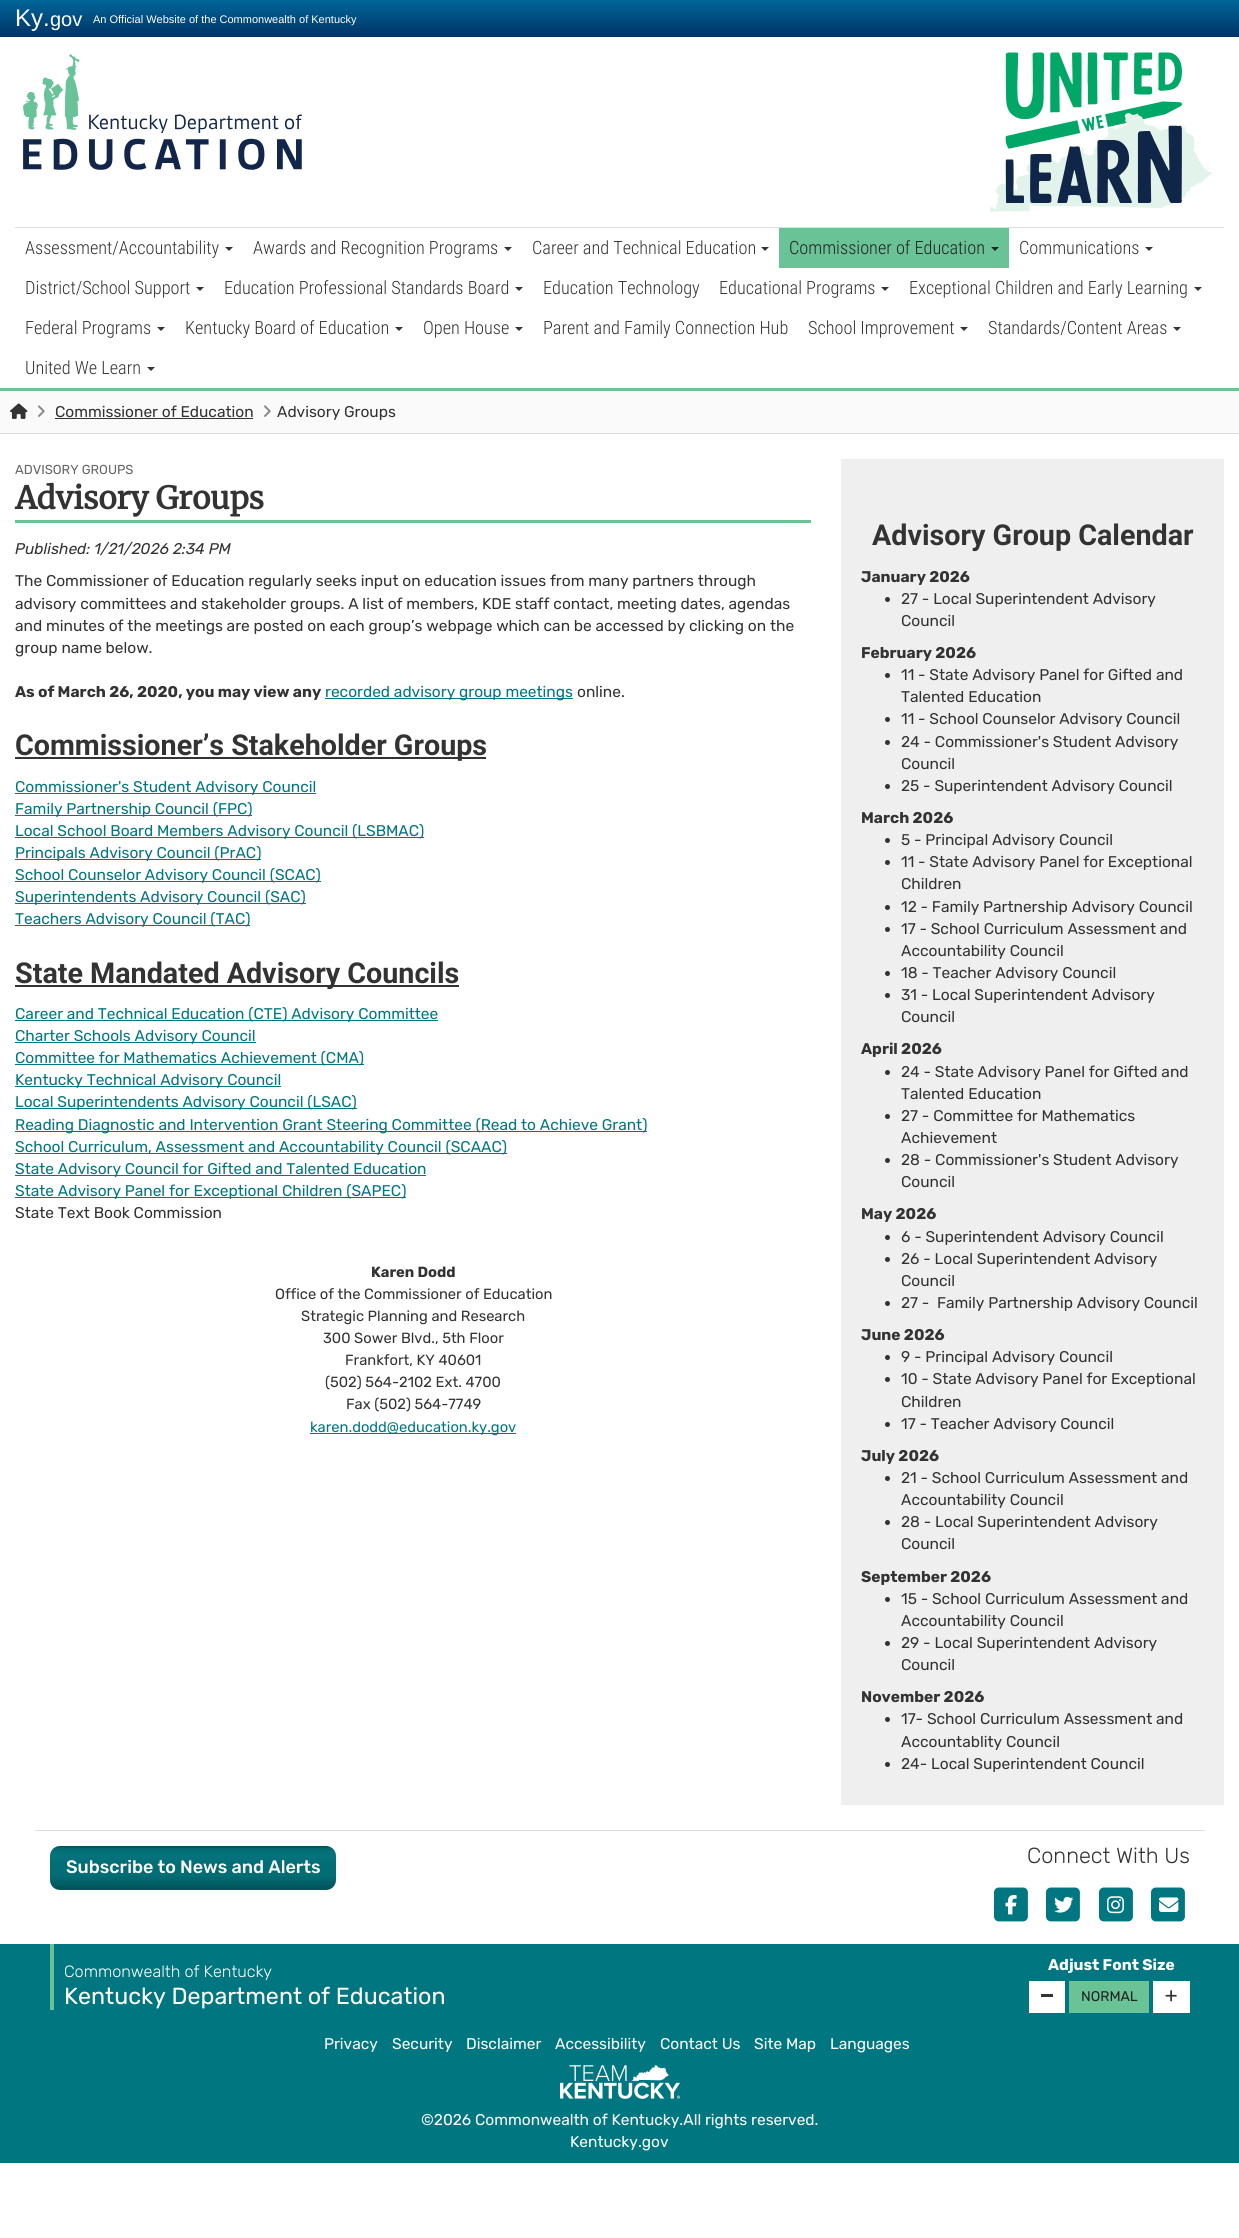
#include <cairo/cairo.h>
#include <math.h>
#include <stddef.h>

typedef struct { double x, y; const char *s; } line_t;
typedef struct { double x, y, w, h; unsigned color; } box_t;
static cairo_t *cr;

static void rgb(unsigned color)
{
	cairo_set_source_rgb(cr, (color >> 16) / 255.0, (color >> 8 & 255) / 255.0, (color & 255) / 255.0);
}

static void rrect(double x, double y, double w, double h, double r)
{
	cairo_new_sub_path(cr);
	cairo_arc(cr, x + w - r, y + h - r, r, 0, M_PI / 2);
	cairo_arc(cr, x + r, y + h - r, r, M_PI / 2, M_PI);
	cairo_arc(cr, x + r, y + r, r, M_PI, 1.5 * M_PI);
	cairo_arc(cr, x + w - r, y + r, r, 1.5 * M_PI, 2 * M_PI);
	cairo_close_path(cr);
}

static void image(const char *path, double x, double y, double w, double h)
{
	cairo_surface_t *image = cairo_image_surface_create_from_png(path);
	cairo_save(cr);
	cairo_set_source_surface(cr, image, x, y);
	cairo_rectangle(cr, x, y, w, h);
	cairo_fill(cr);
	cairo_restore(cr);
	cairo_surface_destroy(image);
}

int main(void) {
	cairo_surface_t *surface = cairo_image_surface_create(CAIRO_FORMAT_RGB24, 1239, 2238);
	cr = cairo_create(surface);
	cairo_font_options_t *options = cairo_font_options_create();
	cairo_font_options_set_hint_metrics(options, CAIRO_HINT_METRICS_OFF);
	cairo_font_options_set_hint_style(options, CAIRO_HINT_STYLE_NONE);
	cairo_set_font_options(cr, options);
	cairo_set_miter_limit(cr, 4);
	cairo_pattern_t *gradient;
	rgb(0xffffff);
	cairo_paint(cr);
	gradient = cairo_pattern_create_linear(620, 0, 620, 37);
	cairo_pattern_add_color_stop_rgba(gradient, 0, 0, 0.4, 0.6, 1);
	cairo_pattern_add_color_stop_rgba(gradient, 1, 0, 0.2, 0.4, 1);
	cairo_set_source(cr, gradient);
	cairo_pattern_destroy(gradient);
	cairo_rectangle(cr, 0, 0, 1239, 37);
	cairo_fill(cr);
	rgb(0x69c397);
	cairo_rectangle(cr, 0, 388, 1239, 3);
	cairo_fill(cr);
	image("img/1.png", 23, 54, 279, 116);
	image("img/2.png", 989, 52, 224, 160);
	rgb(0xdddddd);
	cairo_rectangle(cr, 15, 227, 1209, 1);
	cairo_fill(cr);
	rgb(0x333333);
	cairo_new_path(cr);
	cairo_move_to(cr, 225, 247);
	cairo_line_to(cr, 233, 247);
	cairo_line_to(cr, 229, 251);
	cairo_close_path(cr);
	cairo_fill(cr);
	cairo_new_path(cr);
	cairo_move_to(cr, 504, 247);
	cairo_line_to(cr, 512, 247);
	cairo_line_to(cr, 508, 251);
	cairo_close_path(cr);
	cairo_fill(cr);
	cairo_new_path(cr);
	cairo_move_to(cr, 761, 247);
	cairo_line_to(cr, 769, 247);
	cairo_line_to(cr, 765, 251);
	cairo_close_path(cr);
	cairo_fill(cr);
	rgb(0x69c397);
	cairo_rectangle(cr, 779, 228, 230, 40);
	cairo_fill(cr);
	rgb(0x222222);
	cairo_new_path(cr);
	cairo_move_to(cr, 991, 247);
	cairo_line_to(cr, 999, 247);
	cairo_line_to(cr, 995, 251);
	cairo_close_path(cr);
	cairo_fill(cr);
	rgb(0x333333);
	cairo_new_path(cr);
	cairo_move_to(cr, 1145, 247);
	cairo_line_to(cr, 1153, 247);
	cairo_line_to(cr, 1149, 251);
	cairo_close_path(cr);
	cairo_fill(cr);
	cairo_new_path(cr);
	cairo_move_to(cr, 196, 287);
	cairo_line_to(cr, 204, 287);
	cairo_line_to(cr, 200, 291);
	cairo_close_path(cr);
	cairo_fill(cr);
	cairo_new_path(cr);
	cairo_move_to(cr, 515, 287);
	cairo_line_to(cr, 523, 287);
	cairo_line_to(cr, 519, 291);
	cairo_close_path(cr);
	cairo_fill(cr);
	cairo_new_path(cr);
	cairo_move_to(cr, 881, 287);
	cairo_line_to(cr, 889, 287);
	cairo_line_to(cr, 885, 291);
	cairo_close_path(cr);
	cairo_fill(cr);
	cairo_new_path(cr);
	cairo_move_to(cr, 1194, 287);
	cairo_line_to(cr, 1202, 287);
	cairo_line_to(cr, 1198, 291);
	cairo_close_path(cr);
	cairo_fill(cr);
	cairo_new_path(cr);
	cairo_move_to(cr, 157, 327);
	cairo_line_to(cr, 165, 327);
	cairo_line_to(cr, 161, 331);
	cairo_close_path(cr);
	cairo_fill(cr);
	cairo_new_path(cr);
	cairo_move_to(cr, 395, 327);
	cairo_line_to(cr, 403, 327);
	cairo_line_to(cr, 399, 331);
	cairo_close_path(cr);
	cairo_fill(cr);
	cairo_new_path(cr);
	cairo_move_to(cr, 515, 327);
	cairo_line_to(cr, 523, 327);
	cairo_line_to(cr, 519, 331);
	cairo_close_path(cr);
	cairo_fill(cr);
	cairo_new_path(cr);
	cairo_move_to(cr, 960, 327);
	cairo_line_to(cr, 968, 327);
	cairo_line_to(cr, 964, 331);
	cairo_close_path(cr);
	cairo_fill(cr);
	cairo_new_path(cr);
	cairo_move_to(cr, 1173, 327);
	cairo_line_to(cr, 1181, 327);
	cairo_line_to(cr, 1177, 331);
	cairo_close_path(cr);
	cairo_fill(cr);
	cairo_new_path(cr);
	cairo_move_to(cr, 147, 367);
	cairo_line_to(cr, 155, 367);
	cairo_line_to(cr, 151, 371);
	cairo_close_path(cr);
	cairo_fill(cr);
	rgb(0xfafafa);
	cairo_rectangle(cr, 0, 391, 1239, 42);
	cairo_fill(cr);
	rgb(0xdcdcdc);
	cairo_rectangle(cr, 0, 433, 1239, 1);
	cairo_fill(cr);
	image("img/3.png", 10, 403, 18, 16);
	image("img/4.png", 38, 405, 7, 12);
	rgb(0x333333);
	cairo_rectangle(cr, 55, 418, 198, 1);
	cairo_fill(cr);
	image("img/4.png", 264, 405, 7, 12);
	{
		static const box_t items[] = {
			{15, 520, 796, 3, 0x69c397},
			{325, 698, 248, 1, 0x007780},
			{15, 757, 471, 2, 0x333333},
			{15, 793, 301, 1, 0x007780},
			{15, 815, 237, 1, 0x007780},
			{15, 837, 409, 1, 0x007780},
			{15, 859, 246, 1, 0x007780},
			{15, 881, 306, 1, 0x007780},
			{15, 903, 291, 1, 0x007780},
			{15, 925, 235, 1, 0x007780},
			{15, 985, 444, 2, 0x333333},
			{15, 1020, 423, 1, 0x007780},
			{15, 1042, 241, 1, 0x007780},
			{15, 1064, 349, 1, 0x007780},
			{15, 1086, 266, 1, 0x007780},
			{15, 1108, 342, 1, 0x007780},
			{15, 1131, 632, 1, 0x007780},
			{15, 1153, 492, 1, 0x007780},
			{15, 1175, 411, 1, 0x007780},
			{15, 1197, 391, 1, 0x007780},
			{310, 1433, 206, 1, 0x007780},
			{841, 459, 383, 1346, 0xefefef},
		};
		for (size_t i = 0; i < sizeof items / sizeof *items; i++) {
			rgb(items[i].color);
			cairo_rectangle(cr, items[i].x, items[i].y, items[i].w, items[i].h);
			cairo_fill(cr);
		}
	}
	rgb(0x333333);
	cairo_arc(cr, 887.5, 599.5, 2.5, 0, 2 * M_PI);
	cairo_fill(cr);
	cairo_arc(cr, 887.5, 675.5, 2.5, 0, 2 * M_PI);
	cairo_fill(cr);
	cairo_arc(cr, 887.5, 719.5, 2.5, 0, 2 * M_PI);
	cairo_fill(cr);
	cairo_arc(cr, 887.5, 742.5, 2.5, 0, 2 * M_PI);
	cairo_fill(cr);
	cairo_arc(cr, 887.5, 786.5, 2.5, 0, 2 * M_PI);
	cairo_fill(cr);
	cairo_arc(cr, 887.5, 840.5, 2.5, 0, 2 * M_PI);
	cairo_fill(cr);
	cairo_arc(cr, 887.5, 862.5, 2.5, 0, 2 * M_PI);
	cairo_fill(cr);
	cairo_arc(cr, 887.5, 907.5, 2.5, 0, 2 * M_PI);
	cairo_fill(cr);
	cairo_arc(cr, 887.5, 929.5, 2.5, 0, 2 * M_PI);
	cairo_fill(cr);
	cairo_arc(cr, 887.5, 973.5, 2.5, 0, 2 * M_PI);
	cairo_fill(cr);
	cairo_arc(cr, 887.5, 995.5, 2.5, 0, 2 * M_PI);
	cairo_fill(cr);
	cairo_arc(cr, 887.5, 1072.5, 2.5, 0, 2 * M_PI);
	cairo_fill(cr);
	cairo_arc(cr, 887.5, 1116.5, 2.5, 0, 2 * M_PI);
	cairo_fill(cr);
	cairo_arc(cr, 887.5, 1160.5, 2.5, 0, 2 * M_PI);
	cairo_fill(cr);
	cairo_arc(cr, 887.5, 1237.5, 2.5, 0, 2 * M_PI);
	cairo_fill(cr);
	cairo_arc(cr, 887.5, 1259.5, 2.5, 0, 2 * M_PI);
	cairo_fill(cr);
	cairo_arc(cr, 887.5, 1303.5, 2.5, 0, 2 * M_PI);
	cairo_fill(cr);
	cairo_arc(cr, 887.5, 1357.5, 2.5, 0, 2 * M_PI);
	cairo_fill(cr);
	cairo_arc(cr, 887.5, 1379.5, 2.5, 0, 2 * M_PI);
	cairo_fill(cr);
	cairo_arc(cr, 887.5, 1424.5, 2.5, 0, 2 * M_PI);
	cairo_fill(cr);
	cairo_arc(cr, 887.5, 1478.5, 2.5, 0, 2 * M_PI);
	cairo_fill(cr);
	cairo_arc(cr, 887.5, 1522.5, 2.5, 0, 2 * M_PI);
	cairo_fill(cr);
	cairo_arc(cr, 887.5, 1599.5, 2.5, 0, 2 * M_PI);
	cairo_fill(cr);
	cairo_arc(cr, 887.5, 1643.5, 2.5, 0, 2 * M_PI);
	cairo_fill(cr);
	cairo_arc(cr, 887.5, 1719.5, 2.5, 0, 2 * M_PI);
	cairo_fill(cr);
	cairo_arc(cr, 887.5, 1764.5, 2.5, 0, 2 * M_PI);
	cairo_fill(cr);
	rgb(0xdddddd);
	cairo_rectangle(cr, 35, 1830, 1170, 1);
	cairo_fill(cr);
	image("img/5.png", 994, 1887, 34, 35);
	image("img/6.png", 1005, 1895, 12, 20);
	image("img/5.png", 1046, 1887, 34, 35);
	image("img/7.png", 1054, 1896, 20, 17);
	image("img/5.png", 1099, 1887, 34, 35);
	image("img/8.png", 1107, 1896, 17, 18);
	image("img/5.png", 1151, 1887, 34, 35);
	image("img/9.png", 1159, 1897, 20, 15);
	cairo_save(cr);
	rrect(50, 1846, 286, 44, 10);
	cairo_clip(cr);
	gradient = cairo_pattern_create_linear(193, 1805, 193, 1847);
	cairo_pattern_add_color_stop_rgba(gradient, 0, 0, 0.345, 0.369, 1);
	cairo_pattern_add_color_stop_rgba(gradient, 0.04, 0.012, 0.4, 0.424, 1);
	cairo_pattern_add_color_stop_rgba(gradient, 0.11, 0.016, 0.439, 0.478, 1);
	cairo_pattern_add_color_stop_rgba(gradient, 0.16, 0.016, 0.443, 0.471, 1);
	cairo_pattern_add_color_stop_rgba(gradient, 0.22, 0.024, 0.447, 0.486, 1);
	cairo_pattern_add_color_stop_rgba(gradient, 0.33, 0.016, 0.439, 0.478, 1);
	cairo_pattern_add_color_stop_rgba(gradient, 0.36, 0.012, 0.431, 0.463, 1);
	cairo_pattern_add_color_stop_rgba(gradient, 0.4, 0.008, 0.427, 0.459, 1);
	cairo_pattern_add_color_stop_rgba(gradient, 0.69, 0.008, 0.427, 0.459, 1);
	cairo_pattern_add_color_stop_rgba(gradient, 0.71, 0.016, 0.42, 0.447, 1);
	cairo_pattern_add_color_stop_rgba(gradient, 0.73, 0.004, 0.408, 0.435, 1);
	cairo_pattern_add_color_stop_rgba(gradient, 0.76, 0.012, 0.408, 0.439, 1);
	cairo_pattern_add_color_stop_rgba(gradient, 0.8, 0.008, 0.392, 0.427, 1);
	cairo_pattern_add_color_stop_rgba(gradient, 0.82, 0, 0.376, 0.404, 1);
	cairo_pattern_add_color_stop_rgba(gradient, 0.87, 0, 0.373, 0.4, 1);
	cairo_pattern_add_color_stop_rgba(gradient, 0.96, 0, 0.333, 0.353, 1);
	cairo_pattern_add_color_stop_rgba(gradient, 1, 0, 0.31, 0.345, 1);
	cairo_set_source(cr, gradient);
	cairo_pattern_destroy(gradient);
	cairo_rectangle(cr, 50, 1846, 286, 1);
	cairo_fill(cr);
	gradient = cairo_pattern_create_linear(193, 1847, 193, 1889);
	cairo_pattern_add_color_stop_rgba(gradient, 0, 0, 0.345, 0.369, 1);
	cairo_pattern_add_color_stop_rgba(gradient, 0.04, 0.012, 0.4, 0.424, 1);
	cairo_pattern_add_color_stop_rgba(gradient, 0.11, 0.016, 0.439, 0.478, 1);
	cairo_pattern_add_color_stop_rgba(gradient, 0.16, 0.016, 0.443, 0.471, 1);
	cairo_pattern_add_color_stop_rgba(gradient, 0.22, 0.024, 0.447, 0.486, 1);
	cairo_pattern_add_color_stop_rgba(gradient, 0.33, 0.016, 0.439, 0.478, 1);
	cairo_pattern_add_color_stop_rgba(gradient, 0.36, 0.012, 0.431, 0.463, 1);
	cairo_pattern_add_color_stop_rgba(gradient, 0.4, 0.008, 0.427, 0.459, 1);
	cairo_pattern_add_color_stop_rgba(gradient, 0.69, 0.008, 0.427, 0.459, 1);
	cairo_pattern_add_color_stop_rgba(gradient, 0.71, 0.016, 0.42, 0.447, 1);
	cairo_pattern_add_color_stop_rgba(gradient, 0.73, 0.004, 0.408, 0.435, 1);
	cairo_pattern_add_color_stop_rgba(gradient, 0.76, 0.012, 0.408, 0.439, 1);
	cairo_pattern_add_color_stop_rgba(gradient, 0.8, 0.008, 0.392, 0.427, 1);
	cairo_pattern_add_color_stop_rgba(gradient, 0.82, 0, 0.376, 0.404, 1);
	cairo_pattern_add_color_stop_rgba(gradient, 0.87, 0, 0.373, 0.4, 1);
	cairo_pattern_add_color_stop_rgba(gradient, 0.96, 0, 0.333, 0.353, 1);
	cairo_pattern_add_color_stop_rgba(gradient, 1, 0, 0.31, 0.345, 1);
	cairo_set_source(cr, gradient);
	cairo_pattern_destroy(gradient);
	cairo_rectangle(cr, 50, 1847, 286, 42);
	cairo_fill(cr);
	gradient = cairo_pattern_create_linear(193, 1889, 193, 1931);
	cairo_pattern_add_color_stop_rgba(gradient, 0, 0, 0.345, 0.369, 1);
	cairo_pattern_add_color_stop_rgba(gradient, 0.04, 0.012, 0.4, 0.424, 1);
	cairo_pattern_add_color_stop_rgba(gradient, 0.11, 0.016, 0.439, 0.478, 1);
	cairo_pattern_add_color_stop_rgba(gradient, 0.16, 0.016, 0.443, 0.471, 1);
	cairo_pattern_add_color_stop_rgba(gradient, 0.22, 0.024, 0.447, 0.486, 1);
	cairo_pattern_add_color_stop_rgba(gradient, 0.33, 0.016, 0.439, 0.478, 1);
	cairo_pattern_add_color_stop_rgba(gradient, 0.36, 0.012, 0.431, 0.463, 1);
	cairo_pattern_add_color_stop_rgba(gradient, 0.4, 0.008, 0.427, 0.459, 1);
	cairo_pattern_add_color_stop_rgba(gradient, 0.69, 0.008, 0.427, 0.459, 1);
	cairo_pattern_add_color_stop_rgba(gradient, 0.71, 0.016, 0.42, 0.447, 1);
	cairo_pattern_add_color_stop_rgba(gradient, 0.73, 0.004, 0.408, 0.435, 1);
	cairo_pattern_add_color_stop_rgba(gradient, 0.76, 0.012, 0.408, 0.439, 1);
	cairo_pattern_add_color_stop_rgba(gradient, 0.8, 0.008, 0.392, 0.427, 1);
	cairo_pattern_add_color_stop_rgba(gradient, 0.82, 0, 0.376, 0.404, 1);
	cairo_pattern_add_color_stop_rgba(gradient, 0.87, 0, 0.373, 0.4, 1);
	cairo_pattern_add_color_stop_rgba(gradient, 0.96, 0, 0.333, 0.353, 1);
	cairo_pattern_add_color_stop_rgba(gradient, 1, 0, 0.31, 0.345, 1);
	cairo_set_source(cr, gradient);
	cairo_pattern_destroy(gradient);
	cairo_rectangle(cr, 50, 1889, 286, 1);
	cairo_fill(cr);
	cairo_restore(cr);
	{
		static const box_t items[] = {
			{0, 1944, 1239, 219, 0x007780},
			{50, 1944, 4, 66, 0x69c397},
			{1029, 1981, 36, 32, 0xffffff},
			{1041, 1994, 12, 3, 0x333333},
			{1069, 1981, 80, 32, 0x69c397},
			{1153, 1981, 37, 32, 0xffffff},
		};
		for (size_t i = 0; i < sizeof items / sizeof *items; i++) {
			rgb(items[i].color);
			cairo_rectangle(cr, items[i].x, items[i].y, items[i].w, items[i].h);
			cairo_fill(cr);
		}
	}
	image("img/10.png", 1165, 1990, 12, 12);
	image("img/11.png", 560, 2065, 120, 34);
	cairo_select_font_face(cr, "Liberation Sans", CAIRO_FONT_SLANT_NORMAL, CAIRO_FONT_WEIGHT_NORMAL);
	cairo_set_font_size(cr, 24);
	cairo_move_to(cr, 15, 26);
	cairo_show_text(cr, "Ky.");
	cairo_set_font_size(cr, 20);
	cairo_move_to(cr, 50, 26);
	cairo_show_text(cr, "gov");
	cairo_set_font_size(cr, 11);
	cairo_move_to(cr, 93, 23);
	cairo_show_text(cr, "An Official Website of the Commonwealth of Kentucky");
	cairo_select_font_face(cr, "Roboto Condensed Light", CAIRO_FONT_SLANT_NORMAL, CAIRO_FONT_WEIGHT_NORMAL);
	cairo_set_font_size(cr, 18.25);
	rgb(0x333333);
	{
		static const line_t items[] = {
			{25, 254, "Assessment/Accountability"},
			{253, 254, "Awards and Recognition Programs"},
			{532, 254, "Career and Technical Education"},
		};
		for (size_t i = 0; i < sizeof items / sizeof *items; i++) {
			cairo_move_to(cr, items[i].x, items[i].y);
			cairo_show_text(cr, items[i].s);
		}
	}
	rgb(0x222222);
	cairo_move_to(cr, 789, 254);
	cairo_show_text(cr, "Commissioner of Education");
	rgb(0x333333);
	{
		static const line_t items[] = {
			{1019, 254, "Communications"},
			{25, 294, "District/School Support"},
			{224, 294, "Education Professional Standards Board"},
			{543, 294, "Education Technology"},
			{719, 294, "Educational Programs"},
			{909, 294, "Exceptional Children and Early Learning"},
			{25, 334, "Federal Programs"},
			{185, 334, "Kentucky Board of Education"},
			{423, 334, "Open House"},
			{543, 334, "Parent and Family Connection Hub"},
			{808, 334, "School Improvement"},
			{988, 334, "Standards/Content Areas"},
			{25, 374, "United We Learn"},
		};
		for (size_t i = 0; i < sizeof items / sizeof *items; i++) {
			cairo_move_to(cr, items[i].x, items[i].y);
			cairo_show_text(cr, items[i].s);
		}
	}
	cairo_select_font_face(cr, "Rubik", CAIRO_FONT_SLANT_NORMAL, CAIRO_FONT_WEIGHT_NORMAL);
	cairo_set_font_size(cr, 15.5);
	cairo_move_to(cr, 55, 417);
	cairo_show_text(cr, "Commissioner of Education");
	cairo_move_to(cr, 277, 417);
	cairo_show_text(cr, "Advisory Groups");
	cairo_set_font_size(cr, 13);
	rgb(0x666666);
	cairo_move_to(cr, 15, 474);
	cairo_show_text(cr, "ADVISORY GROUPS");
	cairo_select_font_face(cr, "Merriweather", CAIRO_FONT_SLANT_NORMAL, CAIRO_FONT_WEIGHT_BOLD);
	cairo_set_font_size(cr, 31);
	rgb(0x333333);
	cairo_move_to(cr, 15, 509);
	cairo_show_text(cr, "Advisory Groups");
	cairo_select_font_face(cr, "Rubik", CAIRO_FONT_SLANT_ITALIC, CAIRO_FONT_WEIGHT_NORMAL);
	cairo_set_font_size(cr, 15.5);
	cairo_move_to(cr, 15, 554);
	cairo_show_text(cr, "Published: 1/21/2026 2:34 PM");
	cairo_select_font_face(cr, "Rubik", CAIRO_FONT_SLANT_NORMAL, CAIRO_FONT_WEIGHT_NORMAL);
	{
		static const line_t items[] = {
			{15, 586, "The Commissioner of Education regularly seeks input on education issues from many partners through"},
			{15, 609, "advisory committees and stakeholder groups. A list of members, KDE staff contact, meeting dates, agendas"},
			{15, 631, "and minutes of the meetings are posted on each group’s webpage which can be accessed by clicking on the"},
			{15, 653, "group name below."},
		};
		for (size_t i = 0; i < sizeof items / sizeof *items; i++) {
			cairo_move_to(cr, items[i].x, items[i].y);
			cairo_show_text(cr, items[i].s);
		}
	}
	cairo_select_font_face(cr, "Rubik", CAIRO_FONT_SLANT_NORMAL, CAIRO_FONT_WEIGHT_BOLD);
	cairo_move_to(cr, 15, 697);
	cairo_show_text(cr, "As of March 26, 2020, you may view any");
	cairo_select_font_face(cr, "Rubik", CAIRO_FONT_SLANT_NORMAL, CAIRO_FONT_WEIGHT_NORMAL);
	rgb(0x007780);
	cairo_move_to(cr, 325, 697);
	cairo_show_text(cr, "recorded advisory group meetings");
	rgb(0x333333);
	cairo_move_to(cr, 577, 697);
	cairo_show_text(cr, "online.");
	cairo_select_font_face(cr, "Roboto", CAIRO_FONT_SLANT_NORMAL, CAIRO_FONT_WEIGHT_BOLD);
	cairo_set_font_size(cr, 28.7);
	cairo_move_to(cr, 15, 755);
	cairo_show_text(cr, "Commissioner’s Stakeholder Groups");
	cairo_select_font_face(cr, "Rubik", CAIRO_FONT_SLANT_NORMAL, CAIRO_FONT_WEIGHT_NORMAL);
	cairo_set_font_size(cr, 15.5);
	rgb(0x007780);
	{
		static const line_t items[] = {
			{15, 792, "Commissioner's Student Advisory Council"},
			{15, 814, "Family Partnership Council (FPC)"},
			{15, 836, "Local School Board Members Advisory Council (LSBMAC)"},
			{15, 858, "Principals Advisory Council (PrAC)"},
			{15, 880, "School Counselor Advisory Council (SCAC)"},
			{15, 902, "Superintendents Advisory Council (SAC)"},
			{15, 924, "Teachers Advisory Council (TAC)"},
		};
		for (size_t i = 0; i < sizeof items / sizeof *items; i++) {
			cairo_move_to(cr, items[i].x, items[i].y);
			cairo_show_text(cr, items[i].s);
		}
	}
	cairo_select_font_face(cr, "Roboto", CAIRO_FONT_SLANT_NORMAL, CAIRO_FONT_WEIGHT_BOLD);
	cairo_set_font_size(cr, 28.7);
	rgb(0x333333);
	cairo_move_to(cr, 15, 983);
	cairo_show_text(cr, "State Mandated Advisory Councils");
	cairo_select_font_face(cr, "Rubik", CAIRO_FONT_SLANT_NORMAL, CAIRO_FONT_WEIGHT_NORMAL);
	cairo_set_font_size(cr, 15.5);
	rgb(0x007780);
	{
		static const line_t items[] = {
			{15, 1019, "Career and Technical Education (CTE) Advisory Committee"},
			{15, 1041, "Charter Schools Advisory Council"},
			{15, 1063, "Committee for Mathematics Achievement (CMA)"},
			{15, 1085, "Kentucky Technical Advisory Council"},
			{15, 1107, "Local Superintendents Advisory Council (LSAC)"},
			{15, 1130, "Reading Diagnostic and Intervention Grant Steering Committee (Read to Achieve Grant)"},
			{15, 1152, "School Curriculum, Assessment and Accountability Council (SCAAC)"},
			{15, 1174, "State Advisory Council for Gifted and Talented Education"},
			{15, 1196, "State Advisory Panel for Exceptional Children (SAPEC)"},
		};
		for (size_t i = 0; i < sizeof items / sizeof *items; i++) {
			cairo_move_to(cr, items[i].x, items[i].y);
			cairo_show_text(cr, items[i].s);
		}
	}
	rgb(0x333333);
	cairo_move_to(cr, 15, 1218);
	cairo_show_text(cr, "State Text Book Commission");
	cairo_select_font_face(cr, "Rubik", CAIRO_FONT_SLANT_NORMAL, CAIRO_FONT_WEIGHT_BOLD);
	cairo_set_font_size(cr, 14.7);
	cairo_move_to(cr, 371, 1277);
	cairo_show_text(cr, "Karen Dodd");
	cairo_select_font_face(cr, "Rubik", CAIRO_FONT_SLANT_NORMAL, CAIRO_FONT_WEIGHT_NORMAL);
	{
		static const line_t items[] = {
			{275, 1299, "Office of the Commissioner of Education"},
			{301, 1321, "Strategic Planning and Research"},
			{323, 1343, "300 Sower Blvd., 5th Floor"},
			{345, 1365, "Frankfort, KY 40601"},
			{325, 1387, "(502) 564-2102 Ext. 4700"},
			{346, 1409, "Fax (502) 564-7749"},
		};
		for (size_t i = 0; i < sizeof items / sizeof *items; i++) {
			cairo_move_to(cr, items[i].x, items[i].y);
			cairo_show_text(cr, items[i].s);
		}
	}
	rgb(0x007780);
	cairo_move_to(cr, 310, 1432);
	cairo_show_text(cr, "karen.dodd@education.ky.gov");
	cairo_select_font_face(cr, "Roboto", CAIRO_FONT_SLANT_NORMAL, CAIRO_FONT_WEIGHT_BOLD);
	cairo_set_font_size(cr, 28.7);
	rgb(0x333333);
	cairo_move_to(cr, 872, 545);
	cairo_show_text(cr, "Advisory Group Calendar");
	cairo_select_font_face(cr, "Rubik", CAIRO_FONT_SLANT_NORMAL, CAIRO_FONT_WEIGHT_BOLD);
	cairo_set_font_size(cr, 15.5);
	cairo_move_to(cr, 861, 582);
	cairo_show_text(cr, "January 2026");
	cairo_select_font_face(cr, "Rubik", CAIRO_FONT_SLANT_NORMAL, CAIRO_FONT_WEIGHT_NORMAL);
	cairo_move_to(cr, 901, 604);
	cairo_show_text(cr, "27 - Local Superintendent Advisory");
	cairo_move_to(cr, 901, 626);
	cairo_show_text(cr, "Council");
	cairo_select_font_face(cr, "Rubik", CAIRO_FONT_SLANT_NORMAL, CAIRO_FONT_WEIGHT_BOLD);
	cairo_move_to(cr, 861, 658);
	cairo_show_text(cr, "February 2026");
	cairo_select_font_face(cr, "Rubik", CAIRO_FONT_SLANT_NORMAL, CAIRO_FONT_WEIGHT_NORMAL);
	{
		static const line_t items[] = {
			{901, 680, "11 - State Advisory Panel for Gifted and"},
			{901, 702, "Talented Education"},
			{901, 724, "11 - School Counselor Advisory Council"},
			{901, 747, "24 - Commissioner's Student Advisory"},
			{901, 769, "Council"},
			{901, 791, "25 - Superintendent Advisory Council"},
		};
		for (size_t i = 0; i < sizeof items / sizeof *items; i++) {
			cairo_move_to(cr, items[i].x, items[i].y);
			cairo_show_text(cr, items[i].s);
		}
	}
	cairo_select_font_face(cr, "Rubik", CAIRO_FONT_SLANT_NORMAL, CAIRO_FONT_WEIGHT_BOLD);
	cairo_move_to(cr, 861, 823);
	cairo_show_text(cr, "March 2026");
	cairo_select_font_face(cr, "Rubik", CAIRO_FONT_SLANT_NORMAL, CAIRO_FONT_WEIGHT_NORMAL);
	{
		static const line_t items[] = {
			{901, 845, "5 - Principal Advisory Council"},
			{901, 867, "11 - State Advisory Panel for Exceptional"},
			{901, 889, "Children"},
			{901, 912, "12 - Family Partnership Advisory Council"},
			{901, 934, "17 - School Curriculum Assessment and"},
			{901, 956, "Accountability Council"},
			{901, 978, "18 - Teacher Advisory Council"},
			{901, 1000, "31 - Local Superintendent Advisory"},
			{901, 1022, "Council"},
		};
		for (size_t i = 0; i < sizeof items / sizeof *items; i++) {
			cairo_move_to(cr, items[i].x, items[i].y);
			cairo_show_text(cr, items[i].s);
		}
	}
	cairo_select_font_face(cr, "Rubik", CAIRO_FONT_SLANT_NORMAL, CAIRO_FONT_WEIGHT_BOLD);
	cairo_move_to(cr, 861, 1054);
	cairo_show_text(cr, "April 2026");
	cairo_select_font_face(cr, "Rubik", CAIRO_FONT_SLANT_NORMAL, CAIRO_FONT_WEIGHT_NORMAL);
	{
		static const line_t items[] = {
			{901, 1077, "24 - State Advisory Panel for Gifted and"},
			{901, 1099, "Talented Education"},
			{901, 1121, "27 - Committee for Mathematics"},
			{901, 1143, "Achievement"},
			{901, 1165, "28 - Commissioner's Student Advisory"},
			{901, 1187, "Council"},
		};
		for (size_t i = 0; i < sizeof items / sizeof *items; i++) {
			cairo_move_to(cr, items[i].x, items[i].y);
			cairo_show_text(cr, items[i].s);
		}
	}
	cairo_select_font_face(cr, "Rubik", CAIRO_FONT_SLANT_NORMAL, CAIRO_FONT_WEIGHT_BOLD);
	cairo_move_to(cr, 861, 1219);
	cairo_show_text(cr, "May 2026");
	cairo_select_font_face(cr, "Rubik", CAIRO_FONT_SLANT_NORMAL, CAIRO_FONT_WEIGHT_NORMAL);
	{
		static const line_t items[] = {
			{901, 1242, "6 - Superintendent Advisory Council"},
			{901, 1264, "26 - Local Superintendent Advisory"},
			{901, 1286, "Council"},
			{901, 1308, "27 -  Family Partnership Advisory Council"},
		};
		for (size_t i = 0; i < sizeof items / sizeof *items; i++) {
			cairo_move_to(cr, items[i].x, items[i].y);
			cairo_show_text(cr, items[i].s);
		}
	}
	cairo_select_font_face(cr, "Rubik", CAIRO_FONT_SLANT_NORMAL, CAIRO_FONT_WEIGHT_BOLD);
	cairo_move_to(cr, 861, 1340);
	cairo_show_text(cr, "June 2026");
	cairo_select_font_face(cr, "Rubik", CAIRO_FONT_SLANT_NORMAL, CAIRO_FONT_WEIGHT_NORMAL);
	{
		static const line_t items[] = {
			{901, 1362, "9 - Principal Advisory Council"},
			{901, 1384, "10 - State Advisory Panel for Exceptional"},
			{901, 1407, "Children"},
			{901, 1429, "17 - Teacher Advisory Council"},
		};
		for (size_t i = 0; i < sizeof items / sizeof *items; i++) {
			cairo_move_to(cr, items[i].x, items[i].y);
			cairo_show_text(cr, items[i].s);
		}
	}
	cairo_select_font_face(cr, "Rubik", CAIRO_FONT_SLANT_NORMAL, CAIRO_FONT_WEIGHT_BOLD);
	cairo_move_to(cr, 861, 1461);
	cairo_show_text(cr, "July 2026");
	cairo_select_font_face(cr, "Rubik", CAIRO_FONT_SLANT_NORMAL, CAIRO_FONT_WEIGHT_NORMAL);
	{
		static const line_t items[] = {
			{901, 1483, "21 - School Curriculum Assessment and"},
			{901, 1505, "Accountability Council"},
			{901, 1527, "28 - Local Superintendent Advisory"},
			{901, 1549, "Council"},
		};
		for (size_t i = 0; i < sizeof items / sizeof *items; i++) {
			cairo_move_to(cr, items[i].x, items[i].y);
			cairo_show_text(cr, items[i].s);
		}
	}
	cairo_select_font_face(cr, "Rubik", CAIRO_FONT_SLANT_NORMAL, CAIRO_FONT_WEIGHT_BOLD);
	cairo_move_to(cr, 861, 1582);
	cairo_show_text(cr, "September 2026");
	cairo_select_font_face(cr, "Rubik", CAIRO_FONT_SLANT_NORMAL, CAIRO_FONT_WEIGHT_NORMAL);
	{
		static const line_t items[] = {
			{901, 1604, "15 - School Curriculum Assessment and"},
			{901, 1626, "Accountability Council"},
			{901, 1648, "29 - Local Superintendent Advisory"},
			{901, 1670, "Council"},
		};
		for (size_t i = 0; i < sizeof items / sizeof *items; i++) {
			cairo_move_to(cr, items[i].x, items[i].y);
			cairo_show_text(cr, items[i].s);
		}
	}
	cairo_select_font_face(cr, "Rubik", CAIRO_FONT_SLANT_NORMAL, CAIRO_FONT_WEIGHT_BOLD);
	cairo_move_to(cr, 861, 1702);
	cairo_show_text(cr, "November 2026");
	cairo_select_font_face(cr, "Rubik", CAIRO_FONT_SLANT_NORMAL, CAIRO_FONT_WEIGHT_NORMAL);
	{
		static const line_t items[] = {
			{901, 1724, "17- School Curriculum Assessment and"},
			{901, 1747, "Accountablity Council"},
			{901, 1769, "24- Local Superintendent Council"},
		};
		for (size_t i = 0; i < sizeof items / sizeof *items; i++) {
			cairo_move_to(cr, items[i].x, items[i].y);
			cairo_show_text(cr, items[i].s);
		}
	}
	cairo_select_font_face(cr, "Rubik Light", CAIRO_FONT_SLANT_NORMAL, CAIRO_FONT_WEIGHT_NORMAL);
	cairo_set_font_size(cr, 21.75);
	cairo_move_to(cr, 1027, 1863);
	cairo_show_text(cr, "Connect With Us");
	cairo_select_font_face(cr, "Rubik Medium", CAIRO_FONT_SLANT_NORMAL, CAIRO_FONT_WEIGHT_NORMAL);
	cairo_set_font_size(cr, 18);
	rgb(0xffffff);
	cairo_move_to(cr, 66, 1873);
	cairo_show_text(cr, "Subscribe to News and Alerts");
	cairo_select_font_face(cr, "Rubik Light", CAIRO_FONT_SLANT_NORMAL, CAIRO_FONT_WEIGHT_NORMAL);
	cairo_set_font_size(cr, 16.25);
	cairo_move_to(cr, 64, 1977);
	cairo_show_text(cr, "Commonwealth of Kentucky");
	cairo_select_font_face(cr, "Rubik", CAIRO_FONT_SLANT_NORMAL, CAIRO_FONT_WEIGHT_NORMAL);
	cairo_set_font_size(cr, 23.25);
	cairo_move_to(cr, 64, 2004);
	cairo_show_text(cr, "Kentucky Department of Education");
	cairo_select_font_face(cr, "Rubik", CAIRO_FONT_SLANT_NORMAL, CAIRO_FONT_WEIGHT_BOLD);
	cairo_set_font_size(cr, 15.5);
	cairo_move_to(cr, 1048, 1970);
	cairo_show_text(cr, "Adjust Font Size");
	cairo_select_font_face(cr, "Rubik", CAIRO_FONT_SLANT_NORMAL, CAIRO_FONT_WEIGHT_NORMAL);
	cairo_set_font_size(cr, 14);
	rgb(0x222222);
	cairo_move_to(cr, 1081, 2001);
	cairo_show_text(cr, "NORMAL");
	cairo_set_font_size(cr, 15.5);
	rgb(0xffffff);
	{
		static const line_t items[] = {
			{324, 2049, "Privacy"},
			{392, 2049, "Security"},
			{466, 2049, "Disclaimer"},
			{555, 2049, "Accessibility"},
			{660, 2049, "Contact Us"},
			{754, 2049, "Site Map"},
			{830, 2049, "Languages"},
			{421, 2125, "©2026 Commonwealth of Kentucky.All rights reserved."},
			{570, 2147, "Kentucky.gov"},
		};
		for (size_t i = 0; i < sizeof items / sizeof *items; i++) {
			cairo_move_to(cr, items[i].x, items[i].y);
			cairo_show_text(cr, items[i].s);
		}
	}
	cairo_surface_write_to_png(surface, "page.png");
	cairo_font_options_destroy(options);
	cairo_destroy(cr);
	cairo_surface_destroy(surface);
	return 0;
}
